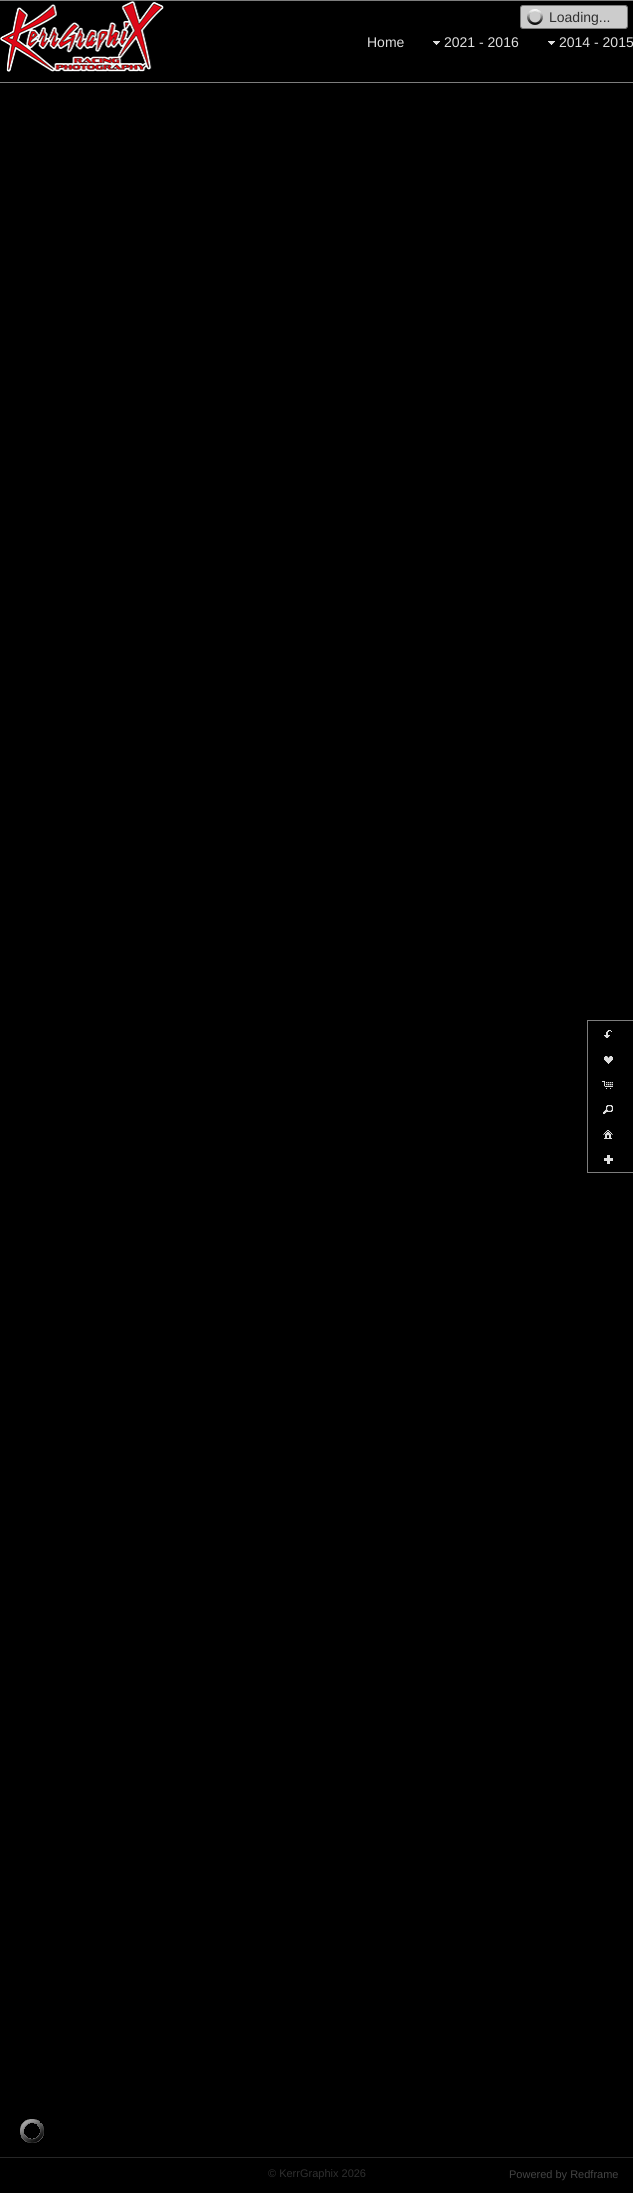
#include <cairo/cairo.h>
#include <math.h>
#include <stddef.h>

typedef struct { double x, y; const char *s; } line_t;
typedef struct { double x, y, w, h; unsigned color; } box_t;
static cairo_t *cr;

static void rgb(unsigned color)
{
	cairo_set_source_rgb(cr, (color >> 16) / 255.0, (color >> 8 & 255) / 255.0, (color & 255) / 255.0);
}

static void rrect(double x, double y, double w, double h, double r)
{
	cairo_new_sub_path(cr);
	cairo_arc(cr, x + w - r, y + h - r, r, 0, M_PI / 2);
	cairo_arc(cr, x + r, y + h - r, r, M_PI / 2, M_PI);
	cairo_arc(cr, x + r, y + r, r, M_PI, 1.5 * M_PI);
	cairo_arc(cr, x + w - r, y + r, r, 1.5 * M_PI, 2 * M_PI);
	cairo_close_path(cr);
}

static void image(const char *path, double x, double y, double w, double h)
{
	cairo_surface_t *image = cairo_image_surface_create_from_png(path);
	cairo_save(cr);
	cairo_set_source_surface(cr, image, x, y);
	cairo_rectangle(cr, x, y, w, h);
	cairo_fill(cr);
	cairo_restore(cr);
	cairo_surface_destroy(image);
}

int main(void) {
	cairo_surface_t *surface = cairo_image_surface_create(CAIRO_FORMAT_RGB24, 633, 2193);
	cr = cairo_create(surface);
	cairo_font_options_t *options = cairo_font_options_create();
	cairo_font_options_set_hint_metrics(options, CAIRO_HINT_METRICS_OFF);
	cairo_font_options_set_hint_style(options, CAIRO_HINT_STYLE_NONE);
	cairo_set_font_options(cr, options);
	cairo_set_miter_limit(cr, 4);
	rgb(0x000000);
	cairo_paint(cr);
	rgb(0xcccccc);
	rrect(520.5, 5.5, 107, 23, 2.5);
	cairo_fill_preserve(cr);
	rgb(0x7a7a7a);
	cairo_set_line_width(cr, 1);
	cairo_stroke(cr);
	image("img/1.png", 527, 9, 16, 16);
	rgb(0x7d7d7d);
	cairo_rectangle(cr, 0, 0, 633, 1);
	cairo_fill(cr);
	cairo_rectangle(cr, 0, 82, 633, 1);
	cairo_fill(cr);
	image("img/2.png", 0, 1, 164, 71);
	image("img/3.png", 433, 41, 7, 4);
	image("img/3.png", 548, 41, 7, 4);
	{
		static const box_t items[] = {
			{0, 2157, 633, 1, 0x262626},
			{587, 1020, 46, 1, 0x7d7d7d},
			{587, 1172, 46, 1, 0x7d7d7d},
			{587, 1020, 1, 153, 0x7d7d7d},
		};
		for (size_t i = 0; i < sizeof items / sizeof *items; i++) {
			rgb(items[i].color);
			cairo_rectangle(cr, items[i].x, items[i].y, items[i].w, items[i].h);
			cairo_fill(cr);
		}
	}
	image("img/4.png", 604, 1030, 8, 8);
	image("img/5.png", 604, 1056, 9, 8);
	image("img/6.png", 602, 1081, 11, 8);
	image("img/7.png", 603, 1105, 10, 9);
	image("img/8.png", 603, 1130, 10, 9);
	image("img/9.png", 604, 1155, 9, 9);
	image("img/10.png", 20, 2119, 24, 24);
	cairo_select_font_face(cr, "Liberation Sans", CAIRO_FONT_SLANT_NORMAL, CAIRO_FONT_WEIGHT_NORMAL);
	cairo_set_font_size(cr, 14);
	rgb(0x2f2f2f);
	cairo_move_to(cr, 549, 22);
	cairo_show_text(cr, "Loading...");
	rgb(0xdedede);
	{
		static const line_t items[] = {
			{367, 47, "Home"},
			{444, 47, "2021 - 2016"},
			{559, 47, "2014 - 2015"},
		};
		for (size_t i = 0; i < sizeof items / sizeof *items; i++) {
			cairo_move_to(cr, items[i].x, items[i].y);
			cairo_show_text(cr, items[i].s);
		}
	}
	cairo_set_font_size(cr, 11);
	rgb(0x2f2f2f);
	cairo_move_to(cr, 268, 2177);
	cairo_show_text(cr, "© KerrGraphix 2026");
	rgb(0x444444);
	cairo_move_to(cr, 509, 2178);
	cairo_show_text(cr, "Powered by Redframe");
	cairo_surface_write_to_png(surface, "page.png");
	cairo_font_options_destroy(options);
	cairo_destroy(cr);
	cairo_surface_destroy(surface);
	return 0;
}
